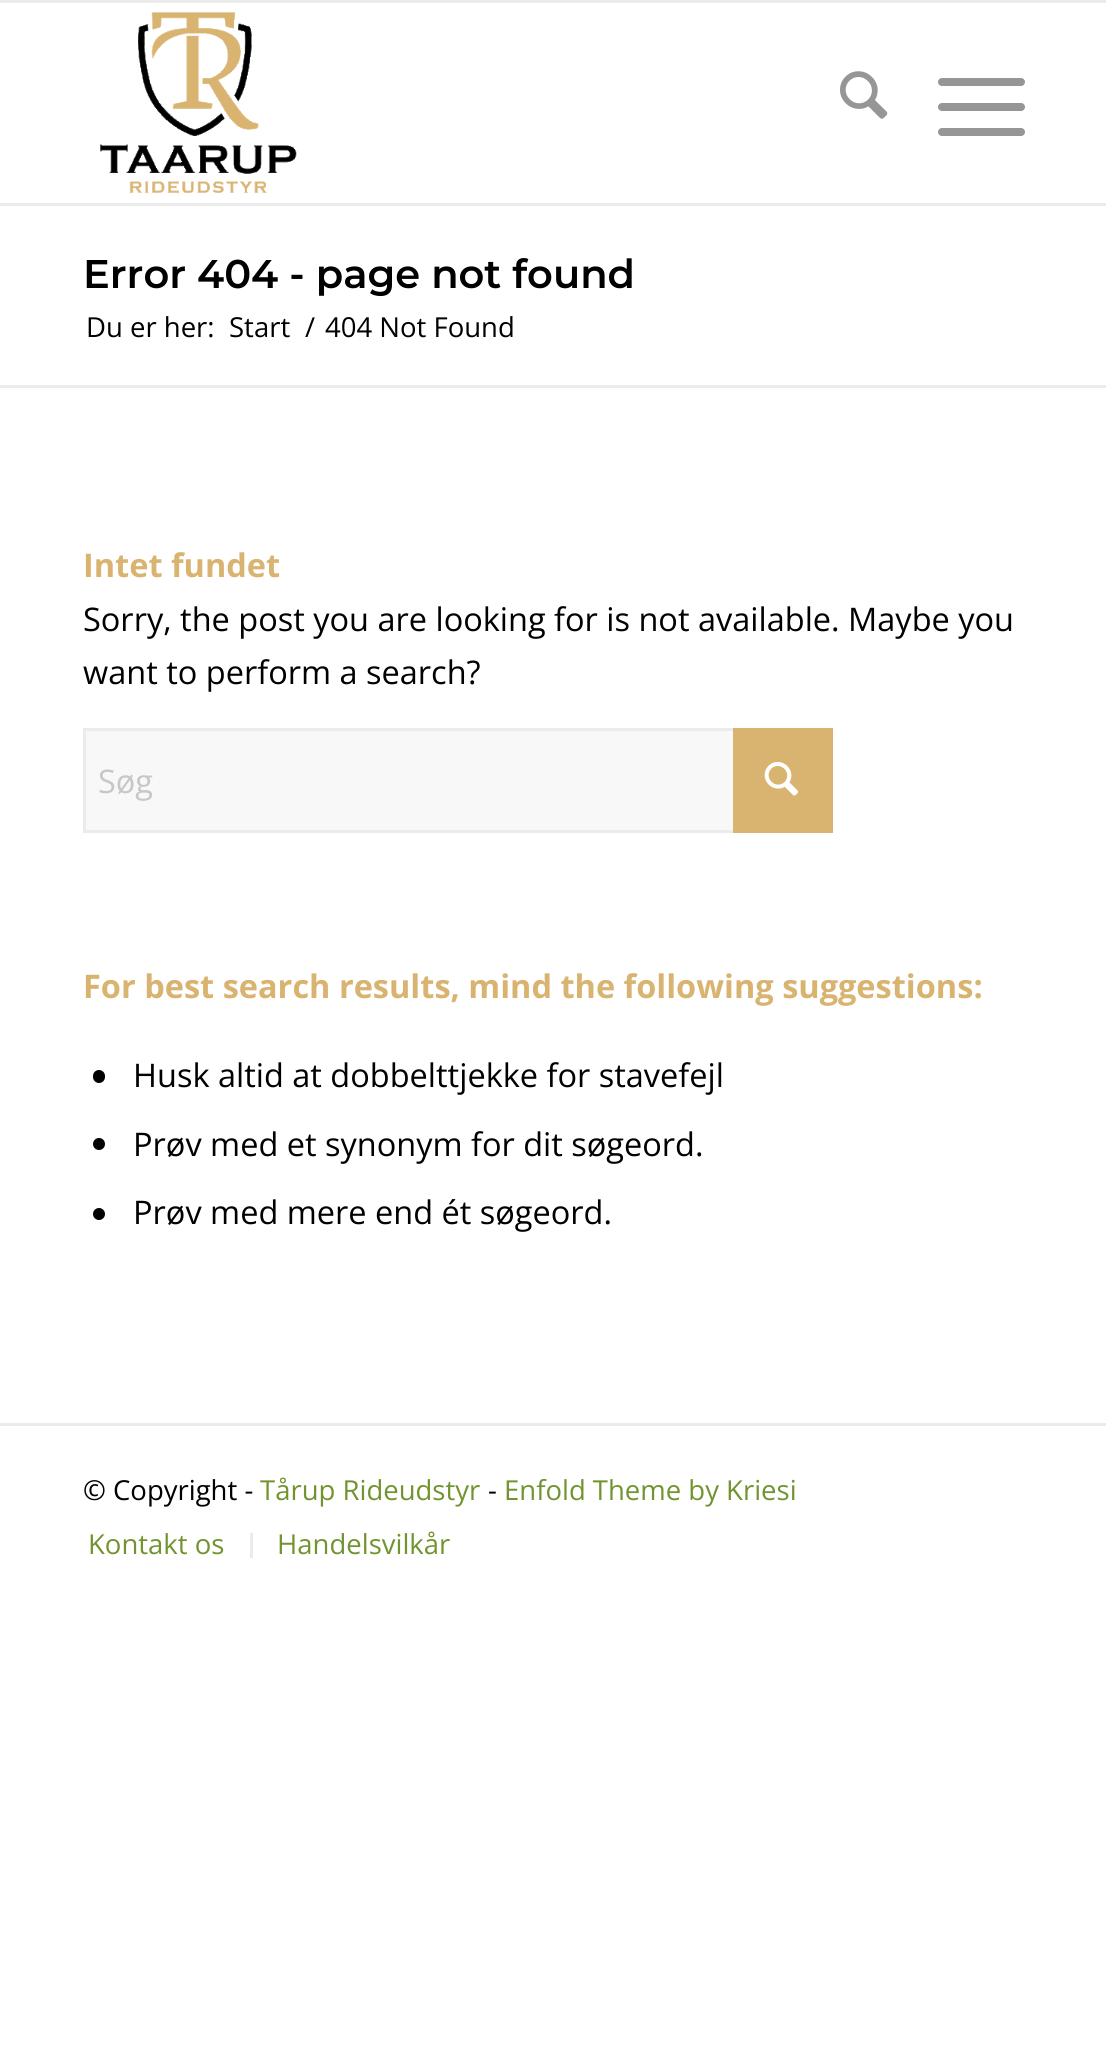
#include <cairo/cairo.h>
#include <math.h>
#include <stddef.h>

typedef struct { double x, y; const char *s; } line_t;
static cairo_t *cr;

static void rgb(unsigned color)
{
	cairo_set_source_rgb(cr, (color >> 16) / 255.0, (color >> 8 & 255) / 255.0, (color & 255) / 255.0);
}

static void rrect(double x, double y, double w, double h, double r)
{
	cairo_new_sub_path(cr);
	cairo_arc(cr, x + w - r, y + h - r, r, 0, M_PI / 2);
	cairo_arc(cr, x + r, y + h - r, r, M_PI / 2, M_PI);
	cairo_arc(cr, x + r, y + r, r, M_PI, 1.5 * M_PI);
	cairo_arc(cr, x + w - r, y + r, r, 1.5 * M_PI, 2 * M_PI);
	cairo_close_path(cr);
}

static void image(const char *path, double x, double y, double w, double h)
{
	cairo_surface_t *image = cairo_image_surface_create_from_png(path);
	cairo_save(cr);
	cairo_set_source_surface(cr, image, x, y);
	cairo_rectangle(cr, x, y, w, h);
	cairo_fill(cr);
	cairo_restore(cr);
	cairo_surface_destroy(image);
}

int main(void) {
	cairo_surface_t *surface = cairo_image_surface_create(CAIRO_FORMAT_RGB24, 1106, 2045);
	cr = cairo_create(surface);
	cairo_font_options_t *options = cairo_font_options_create();
	cairo_font_options_set_hint_metrics(options, CAIRO_HINT_METRICS_OFF);
	cairo_font_options_set_hint_style(options, CAIRO_HINT_STYLE_NONE);
	cairo_set_font_options(cr, options);
	cairo_set_miter_limit(cr, 4);
	rgb(0xffffff);
	cairo_paint(cr);
	rgb(0xebebeb);
	cairo_rectangle(cr, 0, 0, 1106, 3);
	cairo_fill(cr);
	cairo_rectangle(cr, 0, 203, 1106, 3);
	cairo_fill(cr);
	image("img/1.png", 100, 12, 197, 182);
	image("img/2.png", 840, 71, 48, 48);
	rgb(0x969696);
	rrect(938, 103, 87, 8, 4);
	cairo_fill(cr);
	rrect(938, 78, 87, 8, 4);
	cairo_fill(cr);
	rrect(938, 128, 87, 8, 4);
	cairo_fill(cr);
	rgb(0xebebeb);
	cairo_rectangle(cr, 0, 385, 1106, 3);
	cairo_fill(cr);
	rgb(0xf8f8f8);
	cairo_rectangle(cr, 86, 731, 647, 99);
	cairo_fill(cr);
	cairo_rectangle(cr, 84.5, 729.5, 747, 102);
	rgb(0xebebeb);
	cairo_set_line_width(cr, 3);
	cairo_stroke(cr);
	rgb(0xd9b370);
	cairo_rectangle(cr, 733, 728, 100, 105);
	cairo_fill(cr);
	image("img/3.png", 764, 761, 35, 35);
	rgb(0x000000);
	rrect(93, 1070, 12, 13, 6);
	cairo_fill(cr);
	cairo_arc(cr, 99, 1144, 6, 0, 2 * M_PI);
	cairo_fill(cr);
	cairo_arc(cr, 99, 1214, 6, 0, 2 * M_PI);
	cairo_fill(cr);
	rgb(0xebebeb);
	cairo_rectangle(cr, 0, 1423, 1106, 3);
	cairo_fill(cr);
	cairo_rectangle(cr, 250, 1533, 3, 25);
	cairo_fill(cr);
	cairo_select_font_face(cr, "Montserrat SemiBold", CAIRO_FONT_SLANT_NORMAL, CAIRO_FONT_WEIGHT_NORMAL);
	cairo_set_font_size(cr, 40);
	rgb(0x000000);
	cairo_move_to(cr, 83, 288);
	cairo_show_text(cr, "Error 404 - page not found");
	cairo_select_font_face(cr, "Open Sans", CAIRO_FONT_SLANT_NORMAL, CAIRO_FONT_WEIGHT_NORMAL);
	cairo_set_font_size(cr, 27.5);
	{
		static const line_t items[] = {
			{86, 337, "Du er her:"},
			{229, 337, "Start"},
			{305, 337, "/"},
			{325, 337, "404 Not Found"},
		};
		for (size_t i = 0; i < sizeof items / sizeof *items; i++) {
			cairo_move_to(cr, items[i].x, items[i].y);
			cairo_show_text(cr, items[i].s);
		}
	}
	cairo_select_font_face(cr, "Open Sans", CAIRO_FONT_SLANT_NORMAL, CAIRO_FONT_WEIGHT_BOLD);
	cairo_set_font_size(cr, 32.5);
	rgb(0xd9b370);
	cairo_move_to(cr, 83, 577);
	cairo_show_text(cr, "Intet fundet");
	cairo_select_font_face(cr, "Open Sans", CAIRO_FONT_SLANT_NORMAL, CAIRO_FONT_WEIGHT_NORMAL);
	rgb(0x000000);
	cairo_move_to(cr, 83, 631);
	cairo_show_text(cr, "Sorry, the post you are looking for is not available. Maybe you");
	cairo_move_to(cr, 83, 684);
	cairo_show_text(cr, "want to perform a search?");
	rgb(0xc7c7c7);
	cairo_move_to(cr, 98, 793);
	cairo_show_text(cr, "Søg");
	cairo_select_font_face(cr, "Open Sans", CAIRO_FONT_SLANT_NORMAL, CAIRO_FONT_WEIGHT_BOLD);
	rgb(0xd9b370);
	cairo_move_to(cr, 83, 998);
	cairo_show_text(cr, "For best search results, mind the following suggestions:");
	cairo_select_font_face(cr, "Open Sans", CAIRO_FONT_SLANT_NORMAL, CAIRO_FONT_WEIGHT_NORMAL);
	rgb(0x000000);
	{
		static const line_t items[] = {
			{133, 1087, "Husk altid at dobbelttjekke for stavefejl"},
			{133, 1156, "Prøv med et synonym for dit søgeord."},
			{133, 1224, "Prøv med mere end ét søgeord."},
		};
		for (size_t i = 0; i < sizeof items / sizeof *items; i++) {
			cairo_move_to(cr, items[i].x, items[i].y);
			cairo_show_text(cr, items[i].s);
		}
	}
	cairo_set_font_size(cr, 27.5);
	cairo_move_to(cr, 83, 1500);
	cairo_show_text(cr, "© Copyright -");
	rgb(0x719430);
	cairo_move_to(cr, 260, 1500);
	cairo_show_text(cr, "Tårup Rideudstyr");
	rgb(0x000000);
	cairo_move_to(cr, 488, 1500);
	cairo_show_text(cr, "-");
	rgb(0x719430);
	{
		static const line_t items[] = {
			{504, 1500, "Enfold Theme by Kriesi"},
			{88, 1554, "Kontakt os"},
			{277, 1554, "Handelsvilkår"},
		};
		for (size_t i = 0; i < sizeof items / sizeof *items; i++) {
			cairo_move_to(cr, items[i].x, items[i].y);
			cairo_show_text(cr, items[i].s);
		}
	}
	cairo_surface_write_to_png(surface, "page.png");
	cairo_font_options_destroy(options);
	cairo_destroy(cr);
	cairo_surface_destroy(surface);
	return 0;
}
